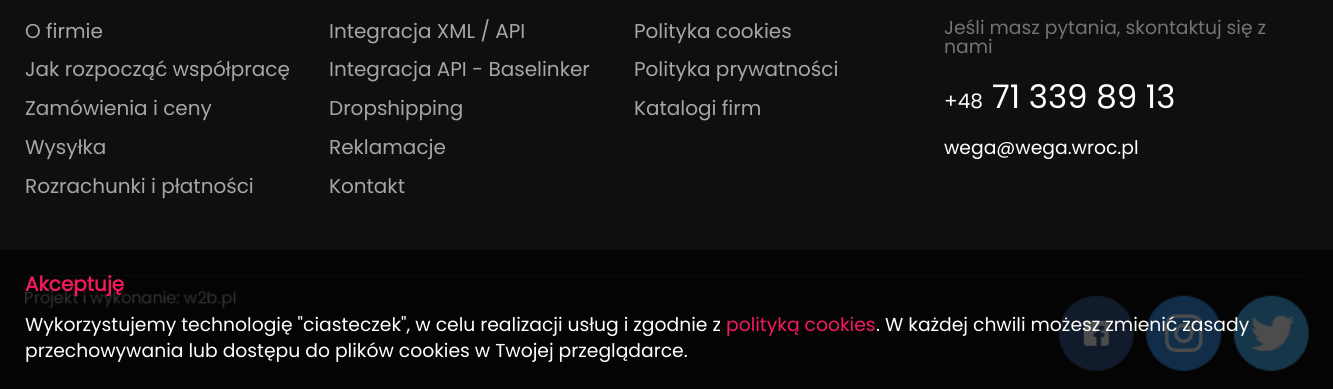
#include <cairo/cairo.h>
#include <math.h>
#include <stddef.h>

typedef struct { double x, y; const char *s; } line_t;
static cairo_t *cr;

static void rgb(unsigned color)
{
	cairo_set_source_rgb(cr, (color >> 16) / 255.0, (color >> 8 & 255) / 255.0, (color & 255) / 255.0);
}

static void image(const char *path, double x, double y, double w, double h)
{
	cairo_surface_t *image = cairo_image_surface_create_from_png(path);
	cairo_save(cr);
	cairo_set_source_surface(cr, image, x, y);
	cairo_rectangle(cr, x, y, w, h);
	cairo_fill(cr);
	cairo_restore(cr);
	cairo_surface_destroy(image);
}

int main(void) {
	cairo_surface_t *surface = cairo_image_surface_create(CAIRO_FORMAT_RGB24, 1333, 389);
	cr = cairo_create(surface);
	cairo_font_options_t *options = cairo_font_options_create();
	cairo_font_options_set_hint_metrics(options, CAIRO_HINT_METRICS_OFF);
	cairo_font_options_set_hint_style(options, CAIRO_HINT_STYLE_NONE);
	cairo_set_font_options(cr, options);
	cairo_set_miter_limit(cr, 4);
	rgb(0x0f0e10);
	cairo_paint(cr);
	rgb(0x050405);
	cairo_rectangle(cr, 0, 250, 1333, 139);
	cairo_fill(cr);
	rgb(0x0d0d0e);
	cairo_rectangle(cr, 25, 275, 1284, 1);
	cairo_fill(cr);
	image("img/1.png", 25, 290, 212, 19);
	image("img/2.png", 1058, 295, 76, 76);
	image("img/3.png", 1146, 295, 76, 76);
	image("img/4.png", 1233, 295, 76, 76);
	cairo_select_font_face(cr, "Poppins", CAIRO_FONT_SLANT_NORMAL, CAIRO_FONT_WEIGHT_NORMAL);
	cairo_set_font_size(cr, 20);
	rgb(0xa6a6a6);
	{
		static const line_t items[] = {
			{25, 38, "O firmie"},
			{329, 38, "Integracja XML / API"},
			{634, 38, "Polityka cookies"},
			{25, 76, "Jak rozpocząć współpracę"},
			{329, 76, "Integracja API - Baselinker"},
			{634, 76, "Polityka prywatności"},
			{25, 115, "Zamówienia i ceny"},
			{329, 115, "Dropshipping"},
			{634, 115, "Katalogi firm"},
			{25, 154, "Wysyłka"},
			{329, 154, "Reklamacje"},
			{25, 193, "Rozrachunki i płatności"},
			{329, 193, "Kontakt"},
		};
		for (size_t i = 0; i < sizeof items / sizeof *items; i++) {
			cairo_move_to(cr, items[i].x, items[i].y);
			cairo_show_text(cr, items[i].s);
		}
	}
	cairo_set_font_size(cr, 18.75);
	rgb(0x737373);
	cairo_move_to(cr, 944, 34);
	cairo_show_text(cr, "Jeśli masz pytania, skontaktuj się z");
	cairo_move_to(cr, 944, 53);
	cairo_show_text(cr, "nami");
	cairo_set_font_size(cr, 20);
	rgb(0xffffff);
	cairo_move_to(cr, 944, 108);
	cairo_show_text(cr, "+48");
	cairo_set_font_size(cr, 32.5);
	cairo_move_to(cr, 992, 108);
	cairo_show_text(cr, "71 339 89 13");
	cairo_set_font_size(cr, 18.75);
	cairo_move_to(cr, 944, 154);
	cairo_show_text(cr, "wega@wega.wroc.pl");
	cairo_select_font_face(cr, "Poppins", CAIRO_FONT_SLANT_NORMAL, CAIRO_FONT_WEIGHT_BOLD);
	cairo_set_font_size(cr, 20);
	rgb(0xf3195c);
	cairo_move_to(cr, 25, 291);
	cairo_show_text(cr, "Akceptuję");
	cairo_select_font_face(cr, "Poppins", CAIRO_FONT_SLANT_NORMAL, CAIRO_FONT_WEIGHT_NORMAL);
	cairo_set_font_size(cr, 18.75);
	rgb(0xffffff);
	cairo_move_to(cr, 25, 331);
	cairo_show_text(cr, "Wykorzystujemy technologię \"ciasteczek\", w celu realizacji usług i zgodnie z");
	rgb(0xf3195c);
	cairo_move_to(cr, 726, 331);
	cairo_show_text(cr, "polityką cookies");
	rgb(0xffffff);
	cairo_move_to(cr, 876, 331);
	cairo_show_text(cr, ". W każdej chwili możesz zmienić zasady");
	cairo_move_to(cr, 25, 357);
	cairo_show_text(cr, "przechowywania lub dostępu do plików cookies w Twojej przeglądarce.");
	cairo_surface_write_to_png(surface, "page.png");
	cairo_font_options_destroy(options);
	cairo_destroy(cr);
	cairo_surface_destroy(surface);
	return 0;
}
